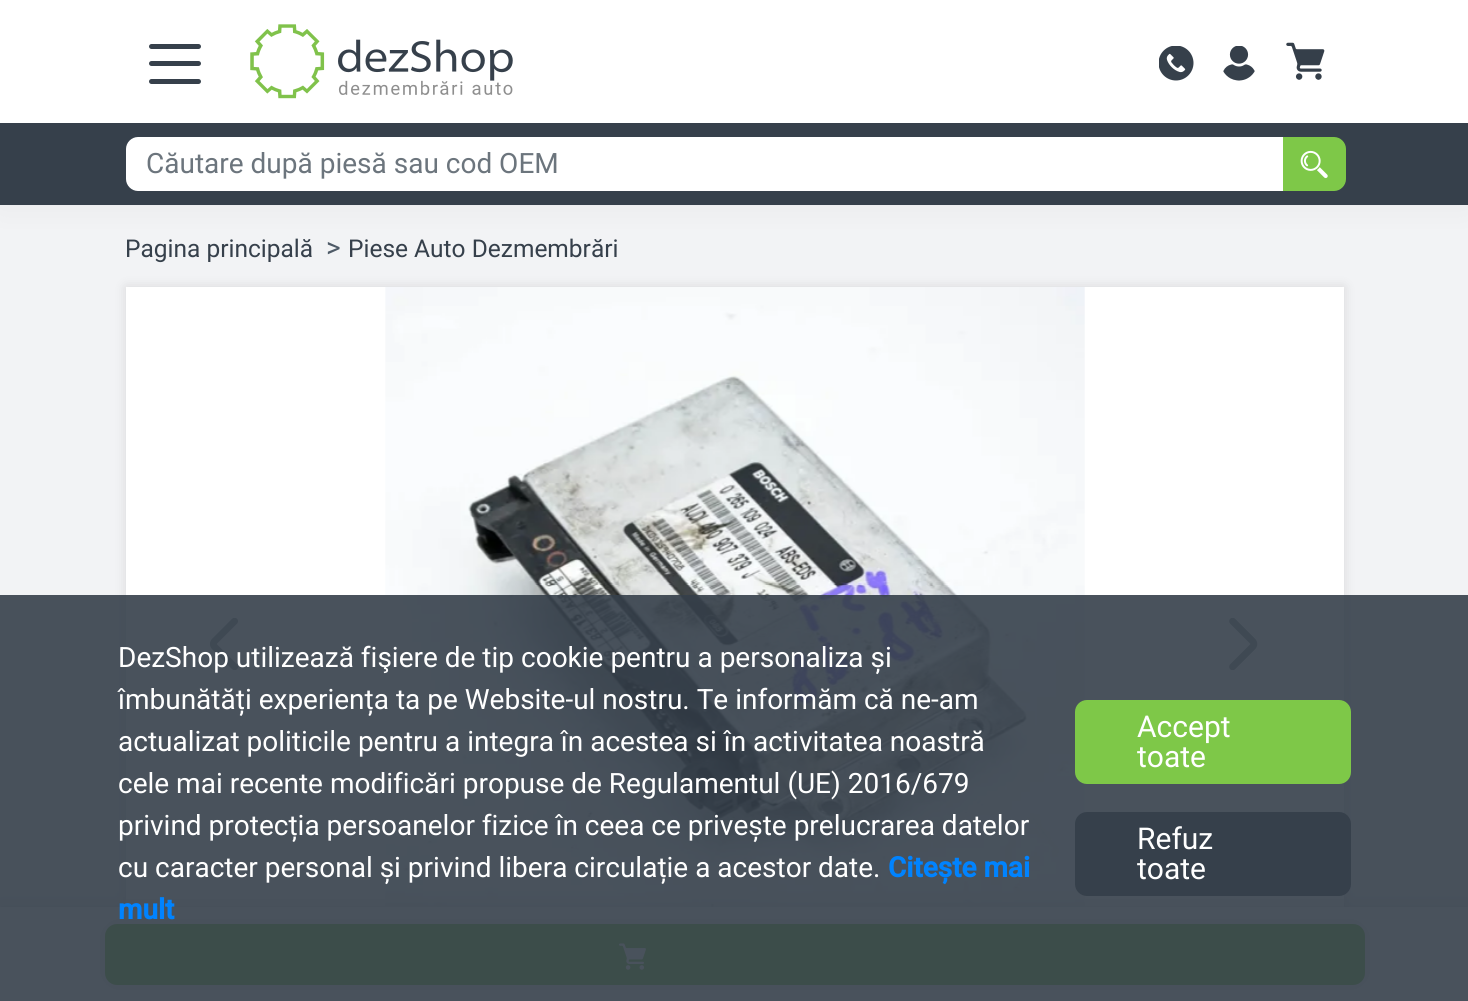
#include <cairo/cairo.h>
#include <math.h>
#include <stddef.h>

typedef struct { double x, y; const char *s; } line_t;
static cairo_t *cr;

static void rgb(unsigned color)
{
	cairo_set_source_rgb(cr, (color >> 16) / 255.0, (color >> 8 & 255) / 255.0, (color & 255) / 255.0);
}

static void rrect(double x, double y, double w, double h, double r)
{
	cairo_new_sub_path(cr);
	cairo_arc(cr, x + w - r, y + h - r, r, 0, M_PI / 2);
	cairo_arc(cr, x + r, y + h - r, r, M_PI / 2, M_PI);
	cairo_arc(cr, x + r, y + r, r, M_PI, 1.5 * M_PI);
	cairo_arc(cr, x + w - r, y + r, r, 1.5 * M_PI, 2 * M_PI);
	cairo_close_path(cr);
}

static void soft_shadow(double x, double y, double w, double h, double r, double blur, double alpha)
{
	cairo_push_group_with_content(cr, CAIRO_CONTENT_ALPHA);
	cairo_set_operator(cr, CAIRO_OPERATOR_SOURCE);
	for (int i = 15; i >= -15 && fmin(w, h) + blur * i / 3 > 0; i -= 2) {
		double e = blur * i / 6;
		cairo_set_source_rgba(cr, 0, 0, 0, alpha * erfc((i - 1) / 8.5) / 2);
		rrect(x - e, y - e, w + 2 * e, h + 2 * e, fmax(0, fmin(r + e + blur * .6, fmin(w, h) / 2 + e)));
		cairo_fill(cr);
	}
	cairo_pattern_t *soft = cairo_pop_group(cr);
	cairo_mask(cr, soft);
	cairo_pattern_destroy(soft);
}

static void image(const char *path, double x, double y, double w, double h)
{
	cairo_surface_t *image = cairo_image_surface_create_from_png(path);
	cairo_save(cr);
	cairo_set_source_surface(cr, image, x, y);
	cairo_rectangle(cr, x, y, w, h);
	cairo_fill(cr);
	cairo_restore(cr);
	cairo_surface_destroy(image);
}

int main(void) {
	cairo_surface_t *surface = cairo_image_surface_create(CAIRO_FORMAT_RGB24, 1468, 1001);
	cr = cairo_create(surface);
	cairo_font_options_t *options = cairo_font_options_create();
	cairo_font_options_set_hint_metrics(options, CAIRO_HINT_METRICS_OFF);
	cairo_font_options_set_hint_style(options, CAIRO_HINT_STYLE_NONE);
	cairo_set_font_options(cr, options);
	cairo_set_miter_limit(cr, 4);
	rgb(0xf2f3f5);
	cairo_paint(cr);
	rgb(0x000000);
	soft_shadow(0, 0, 1468, 203, 0, 17.5, 0.05);
	rgb(0xffffff);
	cairo_rectangle(cr, 0, 0, 1468, 123);
	cairo_fill(cr);
	rgb(0x36404b);
	rrect(149, 44, 52, 5, 2.5);
	cairo_fill(cr);
	rrect(149, 61, 52, 5, 2.5);
	cairo_fill(cr);
	rrect(149, 79, 52, 5, 2.5);
	cairo_fill(cr);
	image("img/1.png", 250, 24, 263, 75);
	image("img/2.png", 1159, 46, 35, 35);
	image("img/3.png", 1223, 46, 32, 35);
	image("img/4.png", 1286, 42, 39, 38);
	cairo_rectangle(cr, 0, 123, 1468, 82);
	cairo_fill(cr);
	rgb(0xffffff);
	cairo_new_path(cr);
	cairo_move_to(cr, 138, 137);
	cairo_line_to(cr, 1283, 137);
	cairo_line_to(cr, 1283, 191);
	cairo_line_to(cr, 138, 191);
	cairo_curve_to(cr, 131.5, 191, 126, 185.5, 126, 179);
	cairo_line_to(cr, 126, 149);
	cairo_curve_to(cr, 126, 142.5, 131.5, 137, 138, 137);
	cairo_close_path(cr);
	cairo_fill(cr);
	rgb(0x7ec848);
	cairo_new_path(cr);
	cairo_move_to(cr, 1283, 137);
	cairo_line_to(cr, 1334, 137);
	cairo_curve_to(cr, 1340.5, 137, 1346, 142.5, 1346, 149);
	cairo_line_to(cr, 1346, 179);
	cairo_curve_to(cr, 1346, 185.5, 1340.5, 191, 1334, 191);
	cairo_line_to(cr, 1283, 191);
	cairo_close_path(cr);
	cairo_fill(cr);
	image("img/5.png", 1300, 150, 28, 29);
	rgb(0x000000);
	soft_shadow(126, 287, 1218, 700, 0, 6, 0.11);
	rgb(0xffffff);
	cairo_rectangle(cr, 126, 287, 1218, 620);
	cairo_fill(cr);
	image("img/6.png", 210, 618, 28, 52);
	image("img/7.png", 385, 287, 700, 620);
	image("img/8.png", 1229, 618, 29, 52);
	rgb(0x000000);
	soft_shadow(0, 910, 1468, 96, 0, 9, 0.2);
	rgb(0xffffff);
	cairo_rectangle(cr, 0, 907, 1468, 94);
	cairo_fill(cr);
	rgb(0x000000);
	soft_shadow(105, 924, 1260, 61, 12, 6, 0.11);
	rgb(0x7ec848);
	rrect(105, 924, 1260, 61, 12);
	cairo_fill(cr);
	image("img/9.png", 619, 943, 27, 27);
	cairo_set_source_rgba(cr, 0.212, 0.251, 0.294, 0.9);
	cairo_rectangle(cr, 0, 595, 1468, 406);
	cairo_fill(cr);
	rgb(0x7ec848);
	rrect(1075, 700, 276, 84, 12);
	cairo_fill(cr);
	rgb(0x36404b);
	rrect(1075, 812, 276, 84, 12);
	cairo_fill(cr);
	cairo_select_font_face(cr, "Roboto", CAIRO_FONT_SLANT_NORMAL, CAIRO_FONT_WEIGHT_NORMAL);
	cairo_set_font_size(cr, 28);
	rgb(0x6c757d);
	cairo_move_to(cr, 146, 173);
	cairo_show_text(cr, "Căutare după piesă sau cod OEM");
	cairo_set_font_size(cr, 24.5);
	rgb(0x36404b);
	cairo_move_to(cr, 125, 257);
	cairo_show_text(cr, "Pagina principală");
	cairo_set_font_size(cr, 28);
	rgb(0x4e5a67);
	cairo_move_to(cr, 326, 257);
	cairo_show_text(cr, ">");
	cairo_set_font_size(cr, 24.5);
	rgb(0x36404b);
	cairo_move_to(cr, 348, 257);
	cairo_show_text(cr, "Piese Auto Dezmembrări");
	cairo_set_font_size(cr, 28);
	rgb(0xffffff);
	{
		static const line_t items[] = {
			{118, 667, "DezShop utilizează fişiere de tip cookie pentru a personaliza și"},
			{118, 709, "îmbunătăți experiența ta pe Website-ul nostru. Te informăm că ne-am"},
			{118, 751, "actualizat politicile pentru a integra în acestea si în activitatea noastră"},
			{118, 793, "cele mai recente modificări propuse de Regulamentul (UE) 2016/679"},
			{118, 835, "privind protecția persoanelor fizice în ceea ce privește prelucrarea datelor"},
			{118, 877, "cu caracter personal și privind libera circulație a acestor date."},
		};
		for (size_t i = 0; i < sizeof items / sizeof *items; i++) {
			cairo_move_to(cr, items[i].x, items[i].y);
			cairo_show_text(cr, items[i].s);
		}
	}
	cairo_select_font_face(cr, "Roboto", CAIRO_FONT_SLANT_NORMAL, CAIRO_FONT_WEIGHT_BOLD);
	rgb(0x0083ff);
	cairo_move_to(cr, 888, 877);
	cairo_show_text(cr, "Citește mai");
	cairo_move_to(cr, 118, 919);
	cairo_show_text(cr, "mult");
	cairo_select_font_face(cr, "Roboto", CAIRO_FONT_SLANT_NORMAL, CAIRO_FONT_WEIGHT_NORMAL);
	cairo_set_font_size(cr, 30);
	rgb(0xffffff);
	{
		static const line_t items[] = {
			{1137, 737, "Accept"},
			{1137, 767, "toate"},
			{1137, 849, "Refuz"},
			{1137, 879, "toate"},
		};
		for (size_t i = 0; i < sizeof items / sizeof *items; i++) {
			cairo_move_to(cr, items[i].x, items[i].y);
			cairo_show_text(cr, items[i].s);
		}
	}
	cairo_surface_write_to_png(surface, "page.png");
	cairo_font_options_destroy(options);
	cairo_destroy(cr);
	cairo_surface_destroy(surface);
	return 0;
}
